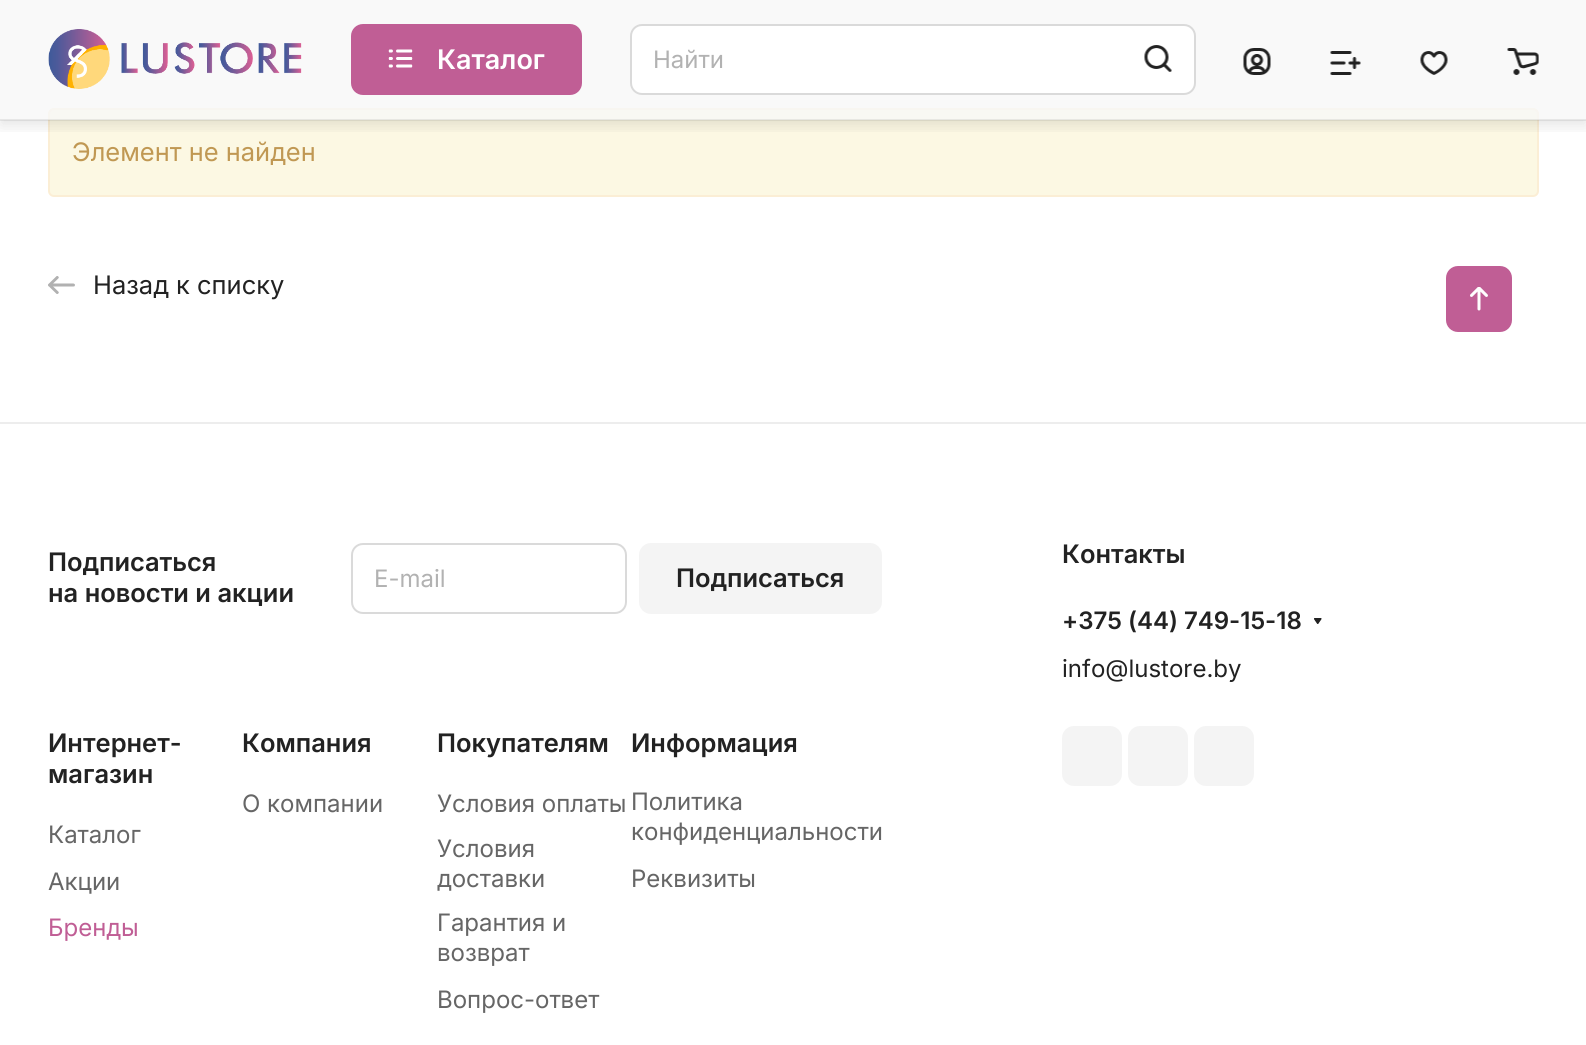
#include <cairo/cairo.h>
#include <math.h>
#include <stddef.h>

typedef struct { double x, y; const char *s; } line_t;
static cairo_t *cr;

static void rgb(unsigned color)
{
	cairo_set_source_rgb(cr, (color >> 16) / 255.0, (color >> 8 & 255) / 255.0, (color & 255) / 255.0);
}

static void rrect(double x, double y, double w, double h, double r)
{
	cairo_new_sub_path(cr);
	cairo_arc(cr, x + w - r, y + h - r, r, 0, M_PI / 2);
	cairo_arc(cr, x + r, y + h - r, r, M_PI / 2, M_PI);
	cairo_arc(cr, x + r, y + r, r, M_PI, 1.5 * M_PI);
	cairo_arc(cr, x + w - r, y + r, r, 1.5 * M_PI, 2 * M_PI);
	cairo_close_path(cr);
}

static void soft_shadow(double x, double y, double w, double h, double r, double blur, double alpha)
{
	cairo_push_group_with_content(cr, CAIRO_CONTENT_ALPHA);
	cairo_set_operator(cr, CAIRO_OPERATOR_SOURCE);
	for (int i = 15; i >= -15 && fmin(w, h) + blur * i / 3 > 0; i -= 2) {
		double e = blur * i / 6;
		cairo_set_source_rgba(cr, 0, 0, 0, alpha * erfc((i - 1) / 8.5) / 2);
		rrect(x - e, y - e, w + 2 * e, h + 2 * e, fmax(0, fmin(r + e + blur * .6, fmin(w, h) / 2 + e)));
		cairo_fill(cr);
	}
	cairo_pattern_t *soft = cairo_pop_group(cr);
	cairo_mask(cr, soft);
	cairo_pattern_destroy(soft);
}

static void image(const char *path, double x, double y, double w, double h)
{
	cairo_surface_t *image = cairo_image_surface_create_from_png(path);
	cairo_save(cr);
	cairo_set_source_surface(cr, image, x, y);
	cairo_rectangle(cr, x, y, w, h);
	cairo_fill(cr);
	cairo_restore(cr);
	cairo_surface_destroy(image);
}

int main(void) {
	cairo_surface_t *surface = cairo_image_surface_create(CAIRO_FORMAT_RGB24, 1586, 1045);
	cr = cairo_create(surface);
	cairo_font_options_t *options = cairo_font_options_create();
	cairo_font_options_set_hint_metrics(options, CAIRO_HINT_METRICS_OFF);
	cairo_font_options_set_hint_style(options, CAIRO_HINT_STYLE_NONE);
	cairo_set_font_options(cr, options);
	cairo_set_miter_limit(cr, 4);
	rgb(0xffffff);
	cairo_paint(cr);
	rgb(0xfcf8e3);
	rrect(49, 109, 1489, 87, 5);
	cairo_fill_preserve(cr);
	rgb(0xfbeed5);
	cairo_stroke(cr);
	cairo_set_source_rgba(cr, 0.969, 0.969, 0.969, 0.8);
	cairo_rectangle(cr, 0, 0, 1586, 120);
	cairo_fill(cr);
	cairo_save(cr);
	cairo_rectangle(cr, 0, 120, 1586, 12);
	cairo_clip(cr);
	rgb(0x000000);
	soft_shadow(0, 6, 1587, 120, 0, 7.5, 0.1);
	cairo_restore(cr);
	cairo_set_source_rgba(cr, 0.133, 0.133, 0.133, 0.08);
	cairo_rectangle(cr, 0, 119, 1586, 2);
	cairo_fill(cr);
	image("img/1.png", 48, 29, 254, 60);
	rgb(0xc05e95);
	rrect(352, 25, 229, 69, 11);
	cairo_fill_preserve(cr);
	cairo_stroke(cr);
	image("img/2.png", 388, 49, 25, 19);
	rgb(0xffffff);
	rrect(631, 25, 564, 69, 11);
	cairo_fill_preserve(cr);
	rgb(0xdadada);
	cairo_stroke(cr);
	image("img/3.png", 1144, 45, 28, 27);
	image("img/4.png", 1243, 48, 28, 27);
	image("img/5.png", 1330, 51, 31, 24);
	image("img/6.png", 1420, 51, 28, 24);
	image("img/7.png", 1507, 48, 32, 27);
	image("img/8.png", 48, 276, 27, 18);
	rgb(0xc05e95);
	rrect(1446, 266, 66, 66, 12);
	cairo_fill(cr);
	image("img/9.png", 1470, 287, 18, 24);
	rgb(0xededed);
	cairo_rectangle(cr, 0, 422, 1586, 2);
	cairo_fill(cr);
	rrect(352, 544, 274, 69, 11);
	rgb(0xdadada);
	cairo_stroke(cr);
	rgb(0xf4f4f4);
	rrect(640, 544, 241, 69, 11);
	cairo_fill_preserve(cr);
	cairo_stroke(cr);
	image("img/10.png", 1314, 618, 8, 6);
	rrect(1062, 726, 60, 60, 12);
	cairo_fill(cr);
	rrect(1128, 726, 60, 60, 12);
	cairo_fill(cr);
	rrect(1194, 726, 60, 60, 12);
	cairo_fill(cr);
	cairo_select_font_face(cr, "Inter SemiBold", CAIRO_FONT_SLANT_NORMAL, CAIRO_FONT_WEIGHT_NORMAL);
	cairo_set_font_size(cr, 27);
	rgb(0xffffff);
	cairo_move_to(cr, 437, 69);
	cairo_show_text(cr, "Каталог");
	cairo_select_font_face(cr, "Inter", CAIRO_FONT_SLANT_NORMAL, CAIRO_FONT_WEIGHT_NORMAL);
	cairo_set_font_size(cr, 24);
	rgb(0xb2b2b2);
	cairo_move_to(cr, 653, 68);
	cairo_show_text(cr, "Найти");
	cairo_set_font_size(cr, 25.5);
	rgb(0xc09853);
	cairo_move_to(cr, 72, 161);
	cairo_show_text(cr, "Элемент не найден");
	rgb(0x222222);
	cairo_move_to(cr, 93, 294);
	cairo_show_text(cr, "Назад к списку");
	cairo_select_font_face(cr, "Inter SemiBold", CAIRO_FONT_SLANT_NORMAL, CAIRO_FONT_WEIGHT_NORMAL);
	cairo_move_to(cr, 48, 571);
	cairo_show_text(cr, "Подписаться");
	cairo_move_to(cr, 48, 602);
	cairo_show_text(cr, "на новости и акции");
	cairo_select_font_face(cr, "Inter", CAIRO_FONT_SLANT_NORMAL, CAIRO_FONT_WEIGHT_NORMAL);
	cairo_set_font_size(cr, 24);
	rgb(0xb2b2b2);
	cairo_move_to(cr, 374, 587);
	cairo_show_text(cr, "E-mail");
	cairo_select_font_face(cr, "Inter SemiBold", CAIRO_FONT_SLANT_NORMAL, CAIRO_FONT_WEIGHT_NORMAL);
	cairo_set_font_size(cr, 25.5);
	rgb(0x222222);
	{
		static const line_t items[] = {
			{676, 587, "Подписаться"},
			{48, 752, "Интернет-"},
			{48, 783, "магазин"},
		};
		for (size_t i = 0; i < sizeof items / sizeof *items; i++) {
			cairo_move_to(cr, items[i].x, items[i].y);
			cairo_show_text(cr, items[i].s);
		}
	}
	cairo_select_font_face(cr, "Inter", CAIRO_FONT_SLANT_NORMAL, CAIRO_FONT_WEIGHT_NORMAL);
	cairo_set_font_size(cr, 24);
	rgb(0x666666);
	cairo_move_to(cr, 48, 843);
	cairo_show_text(cr, "Каталог");
	cairo_move_to(cr, 48, 890);
	cairo_show_text(cr, "Акции");
	rgb(0xc05e95);
	cairo_move_to(cr, 48, 936);
	cairo_show_text(cr, "Бренды");
	cairo_select_font_face(cr, "Inter SemiBold", CAIRO_FONT_SLANT_NORMAL, CAIRO_FONT_WEIGHT_NORMAL);
	cairo_set_font_size(cr, 25.5);
	rgb(0x222222);
	cairo_move_to(cr, 242, 752);
	cairo_show_text(cr, "Компания");
	cairo_select_font_face(cr, "Inter", CAIRO_FONT_SLANT_NORMAL, CAIRO_FONT_WEIGHT_NORMAL);
	cairo_set_font_size(cr, 24);
	rgb(0x666666);
	cairo_move_to(cr, 242, 812);
	cairo_show_text(cr, "О компании");
	cairo_select_font_face(cr, "Inter SemiBold", CAIRO_FONT_SLANT_NORMAL, CAIRO_FONT_WEIGHT_NORMAL);
	cairo_set_font_size(cr, 25.5);
	rgb(0x222222);
	cairo_move_to(cr, 437, 752);
	cairo_show_text(cr, "Покупателям");
	cairo_select_font_face(cr, "Inter", CAIRO_FONT_SLANT_NORMAL, CAIRO_FONT_WEIGHT_NORMAL);
	cairo_set_font_size(cr, 24);
	rgb(0x666666);
	{
		static const line_t items[] = {
			{437, 812, "Условия оплаты"},
			{437, 857, "Условия"},
			{437, 887, "доставки"},
			{437, 931, "Гарантия и"},
			{437, 961, "возврат"},
			{437, 1008, "Вопрос-ответ"},
		};
		for (size_t i = 0; i < sizeof items / sizeof *items; i++) {
			cairo_move_to(cr, items[i].x, items[i].y);
			cairo_show_text(cr, items[i].s);
		}
	}
	cairo_select_font_face(cr, "Inter SemiBold", CAIRO_FONT_SLANT_NORMAL, CAIRO_FONT_WEIGHT_NORMAL);
	cairo_set_font_size(cr, 25.5);
	rgb(0x222222);
	cairo_move_to(cr, 631, 752);
	cairo_show_text(cr, "Информация");
	cairo_select_font_face(cr, "Inter", CAIRO_FONT_SLANT_NORMAL, CAIRO_FONT_WEIGHT_NORMAL);
	cairo_set_font_size(cr, 24);
	rgb(0x666666);
	{
		static const line_t items[] = {
			{631, 810, "Политика"},
			{631, 840, "конфиденциальности"},
			{631, 887, "Реквизиты"},
		};
		for (size_t i = 0; i < sizeof items / sizeof *items; i++) {
			cairo_move_to(cr, items[i].x, items[i].y);
			cairo_show_text(cr, items[i].s);
		}
	}
	cairo_select_font_face(cr, "Inter SemiBold", CAIRO_FONT_SLANT_NORMAL, CAIRO_FONT_WEIGHT_NORMAL);
	cairo_set_font_size(cr, 25.5);
	rgb(0x222222);
	cairo_move_to(cr, 1062, 563);
	cairo_show_text(cr, "Контакты");
	cairo_set_font_size(cr, 24);
	cairo_move_to(cr, 1062, 629);
	cairo_show_text(cr, "+375 (44) 749-15-18");
	cairo_select_font_face(cr, "Inter", CAIRO_FONT_SLANT_NORMAL, CAIRO_FONT_WEIGHT_NORMAL);
	cairo_move_to(cr, 1062, 677);
	cairo_show_text(cr, "info@lustore.by");
	cairo_surface_write_to_png(surface, "page.png");
	cairo_font_options_destroy(options);
	cairo_destroy(cr);
	cairo_surface_destroy(surface);
	return 0;
}
